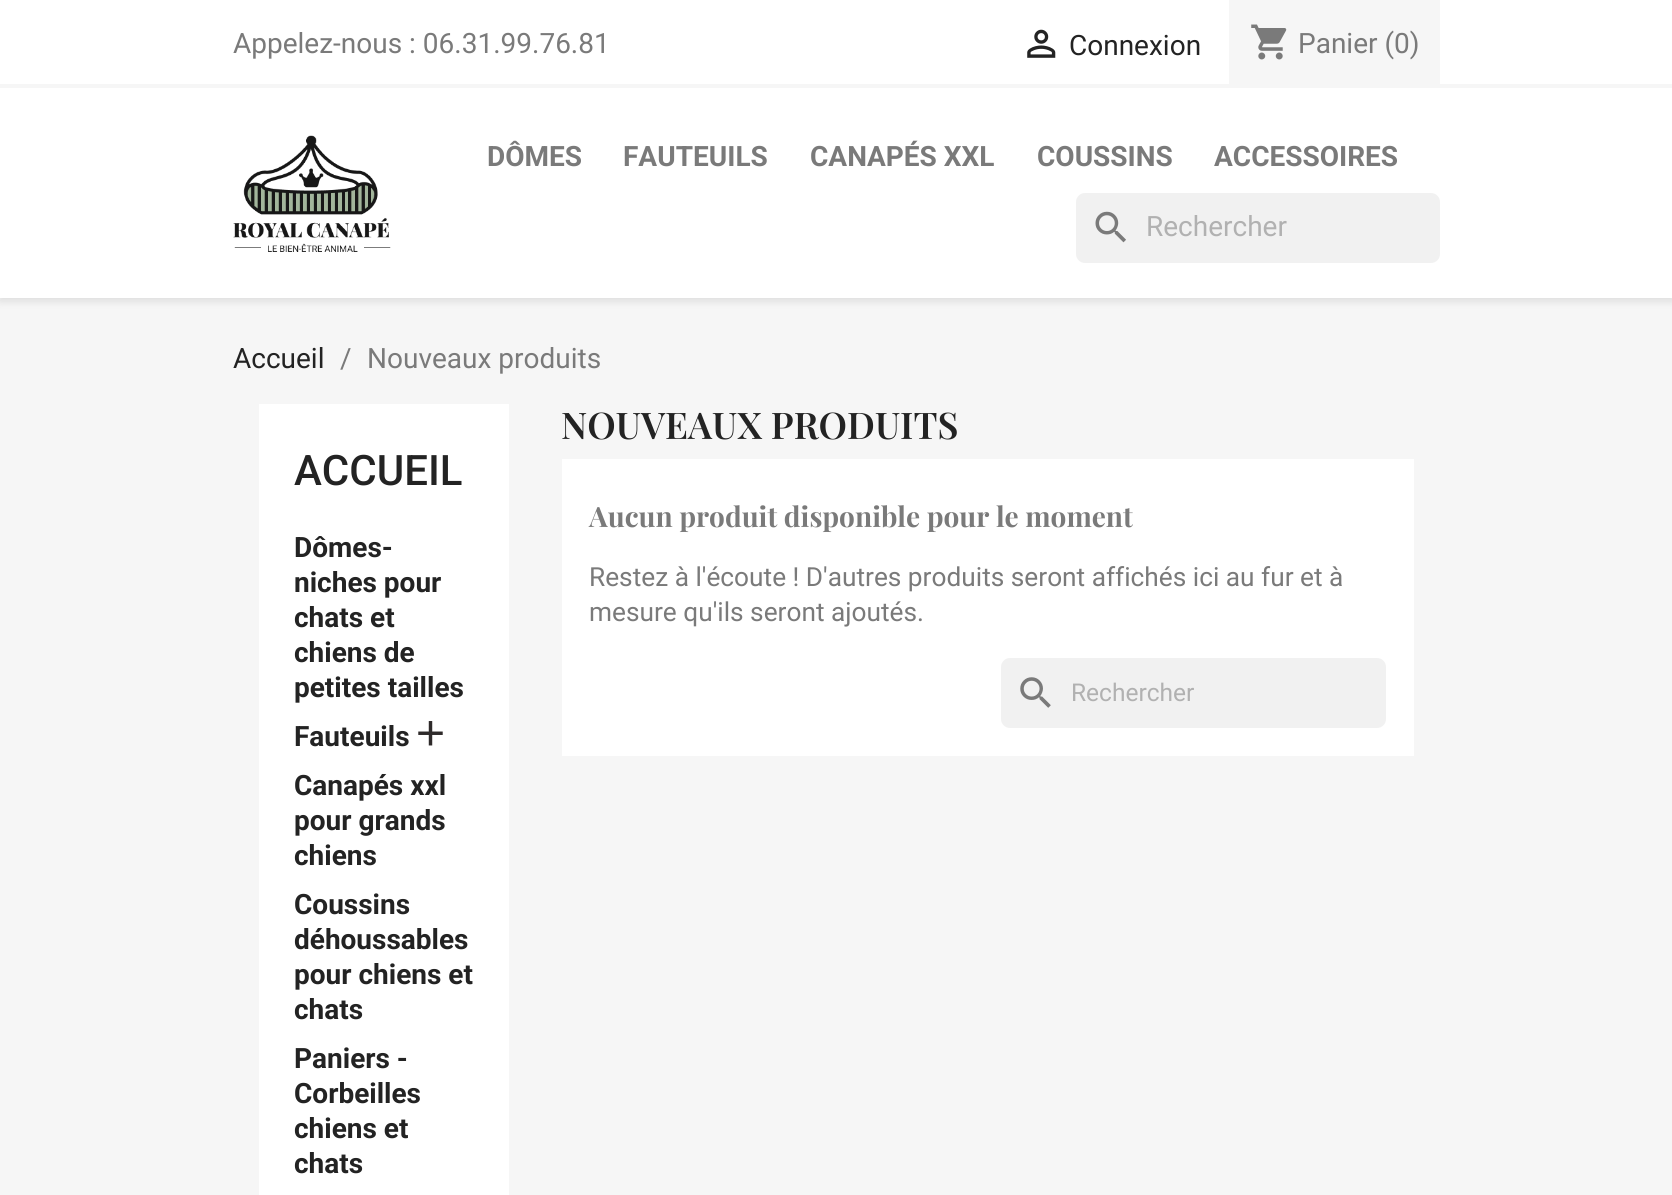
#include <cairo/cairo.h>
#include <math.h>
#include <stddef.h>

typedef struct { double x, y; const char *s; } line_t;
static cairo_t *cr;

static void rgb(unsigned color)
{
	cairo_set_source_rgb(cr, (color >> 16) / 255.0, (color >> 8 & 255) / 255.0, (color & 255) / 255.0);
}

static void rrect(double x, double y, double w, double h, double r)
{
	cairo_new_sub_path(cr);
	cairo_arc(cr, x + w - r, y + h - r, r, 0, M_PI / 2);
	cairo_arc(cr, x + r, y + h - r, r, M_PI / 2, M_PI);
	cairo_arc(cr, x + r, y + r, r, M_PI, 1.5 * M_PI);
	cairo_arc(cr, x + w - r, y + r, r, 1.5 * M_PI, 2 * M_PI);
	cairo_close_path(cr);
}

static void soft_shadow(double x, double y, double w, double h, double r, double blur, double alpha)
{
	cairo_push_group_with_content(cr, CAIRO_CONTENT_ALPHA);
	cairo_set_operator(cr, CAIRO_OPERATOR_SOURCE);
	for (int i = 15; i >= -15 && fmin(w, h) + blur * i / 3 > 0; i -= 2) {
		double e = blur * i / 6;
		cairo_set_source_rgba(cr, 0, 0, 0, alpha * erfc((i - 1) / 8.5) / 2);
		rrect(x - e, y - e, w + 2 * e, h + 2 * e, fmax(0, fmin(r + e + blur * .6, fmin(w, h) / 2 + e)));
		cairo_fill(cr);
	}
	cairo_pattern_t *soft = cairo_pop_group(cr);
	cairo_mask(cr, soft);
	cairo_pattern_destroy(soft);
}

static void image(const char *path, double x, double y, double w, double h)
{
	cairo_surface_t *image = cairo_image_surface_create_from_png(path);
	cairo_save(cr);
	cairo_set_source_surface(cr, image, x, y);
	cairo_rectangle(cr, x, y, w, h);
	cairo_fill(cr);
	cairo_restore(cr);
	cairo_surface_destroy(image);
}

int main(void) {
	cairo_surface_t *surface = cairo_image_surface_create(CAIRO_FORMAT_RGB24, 1672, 1195);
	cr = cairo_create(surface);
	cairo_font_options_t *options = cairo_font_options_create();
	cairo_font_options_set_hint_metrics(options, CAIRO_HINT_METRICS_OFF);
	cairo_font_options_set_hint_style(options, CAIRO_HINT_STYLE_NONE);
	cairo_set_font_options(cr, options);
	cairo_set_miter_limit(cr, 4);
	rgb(0xf6f6f6);
	cairo_paint(cr);
	rgb(0x000000);
	soft_shadow(0, 4, 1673, 297, 0, 4.5, 0.11);
	rgb(0xffffff);
	cairo_rectangle(cr, 0, 0, 1672, 298);
	cairo_fill(cr);
	rgb(0xf6f6f6);
	cairo_rectangle(cr, 0, 84, 1672, 4);
	cairo_fill(cr);
	image("img/1.png", 1027, 29, 29, 29);
	cairo_rectangle(cr, 1229, 0, 211, 84);
	cairo_fill(cr);
	image("img/2.png", 1251, 24, 36, 36);
	image("img/3.png", 233, 135, 158, 117);
	rgb(0xf1f1f1);
	rrect(1076, 193, 364, 70, 9);
	cairo_fill(cr);
	image("img/4.png", 1095, 211, 31, 32);
	rgb(0xffffff);
	cairo_rectangle(cr, 259, 404, 250, 791);
	cairo_fill(cr);
	image("img/5.png", 418, 721, 25, 25);
	cairo_rectangle(cr, 562, 459, 852, 297);
	cairo_fill(cr);
	rgb(0xf1f1f1);
	rrect(1001, 658, 385, 70, 9);
	cairo_fill(cr);
	image("img/6.png", 1020, 677, 31, 31);
	cairo_select_font_face(cr, "Roboto", CAIRO_FONT_SLANT_NORMAL, CAIRO_FONT_WEIGHT_NORMAL);
	cairo_set_font_size(cr, 28);
	rgb(0x7a7a7a);
	cairo_move_to(cr, 233, 53);
	cairo_show_text(cr, "Appelez-nous : 06.31.99.76.81");
	rgb(0x232323);
	cairo_move_to(cr, 1069, 55);
	cairo_show_text(cr, "Connexion");
	rgb(0x7a7a7a);
	cairo_move_to(cr, 1298, 53);
	cairo_show_text(cr, "Panier (0)");
	cairo_select_font_face(cr, "Roboto", CAIRO_FONT_SLANT_NORMAL, CAIRO_FONT_WEIGHT_BOLD);
	{
		static const line_t items[] = {
			{487, 166, "DÔMES"},
			{623, 166, "FAUTEUILS"},
			{810, 166, "CANAPÉS XXL"},
			{1037, 166, "COUSSINS"},
			{1214, 166, "ACCESSOIRES"},
		};
		for (size_t i = 0; i < sizeof items / sizeof *items; i++) {
			cairo_move_to(cr, items[i].x, items[i].y);
			cairo_show_text(cr, items[i].s);
		}
	}
	cairo_select_font_face(cr, "Roboto", CAIRO_FONT_SLANT_NORMAL, CAIRO_FONT_WEIGHT_NORMAL);
	rgb(0xb1b1b1);
	cairo_move_to(cr, 1146, 236);
	cairo_show_text(cr, "Rechercher");
	rgb(0x232323);
	cairo_move_to(cr, 233, 368);
	cairo_show_text(cr, "Accueil");
	rgb(0x7a7a7a);
	cairo_move_to(cr, 340, 368);
	cairo_show_text(cr, "/");
	cairo_move_to(cr, 367, 368);
	cairo_show_text(cr, "Nouveaux produits");
	cairo_select_font_face(cr, "Roboto Medium", CAIRO_FONT_SLANT_NORMAL, CAIRO_FONT_WEIGHT_NORMAL);
	cairo_set_font_size(cr, 42);
	rgb(0x232323);
	cairo_move_to(cr, 294, 485);
	cairo_show_text(cr, "ACCUEIL");
	cairo_select_font_face(cr, "Roboto", CAIRO_FONT_SLANT_NORMAL, CAIRO_FONT_WEIGHT_BOLD);
	cairo_set_font_size(cr, 28);
	{
		static const line_t items[] = {
			{294, 557, "Dômes-"},
			{294, 592, "niches pour"},
			{294, 627, "chats et"},
			{294, 662, "chiens de"},
			{294, 697, "petites tailles"},
			{294, 746, "Fauteuils"},
			{294, 795, "Canapés xxl"},
			{294, 830, "pour grands"},
			{294, 865, "chiens"},
			{294, 914, "Coussins"},
			{294, 949, "déhoussables"},
			{294, 984, "pour chiens et"},
			{294, 1019, "chats"},
			{294, 1068, "Paniers -"},
			{294, 1103, "Corbeilles"},
			{294, 1138, "chiens et"},
			{294, 1173, "chats"},
		};
		for (size_t i = 0; i < sizeof items / sizeof *items; i++) {
			cairo_move_to(cr, items[i].x, items[i].y);
			cairo_show_text(cr, items[i].s);
		}
	}
	cairo_select_font_face(cr, "Playfair Display SemiBold", CAIRO_FONT_SLANT_NORMAL, CAIRO_FONT_WEIGHT_NORMAL);
	cairo_set_font_size(cr, 36.75);
	cairo_move_to(cr, 561, 439);
	cairo_show_text(cr, "NOUVEAUX PRODUITS");
	cairo_select_font_face(cr, "Playfair Display", CAIRO_FONT_SLANT_NORMAL, CAIRO_FONT_WEIGHT_BOLD);
	cairo_set_font_size(cr, 28);
	rgb(0x7a7a7a);
	cairo_move_to(cr, 589, 527);
	cairo_show_text(cr, "Aucun produit disponible pour le moment");
	cairo_select_font_face(cr, "Roboto", CAIRO_FONT_SLANT_NORMAL, CAIRO_FONT_WEIGHT_NORMAL);
	cairo_set_font_size(cr, 26.25);
	cairo_move_to(cr, 589, 586);
	cairo_show_text(cr, "Restez à l'écoute ! D'autres produits seront affichés ici au fur et à");
	cairo_move_to(cr, 589, 621);
	cairo_show_text(cr, "mesure qu'ils seront ajoutés.");
	cairo_set_font_size(cr, 24.5);
	rgb(0xb1b1b1);
	cairo_move_to(cr, 1071, 701);
	cairo_show_text(cr, "Rechercher");
	cairo_surface_write_to_png(surface, "page.png");
	cairo_font_options_destroy(options);
	cairo_destroy(cr);
	cairo_surface_destroy(surface);
	return 0;
}
